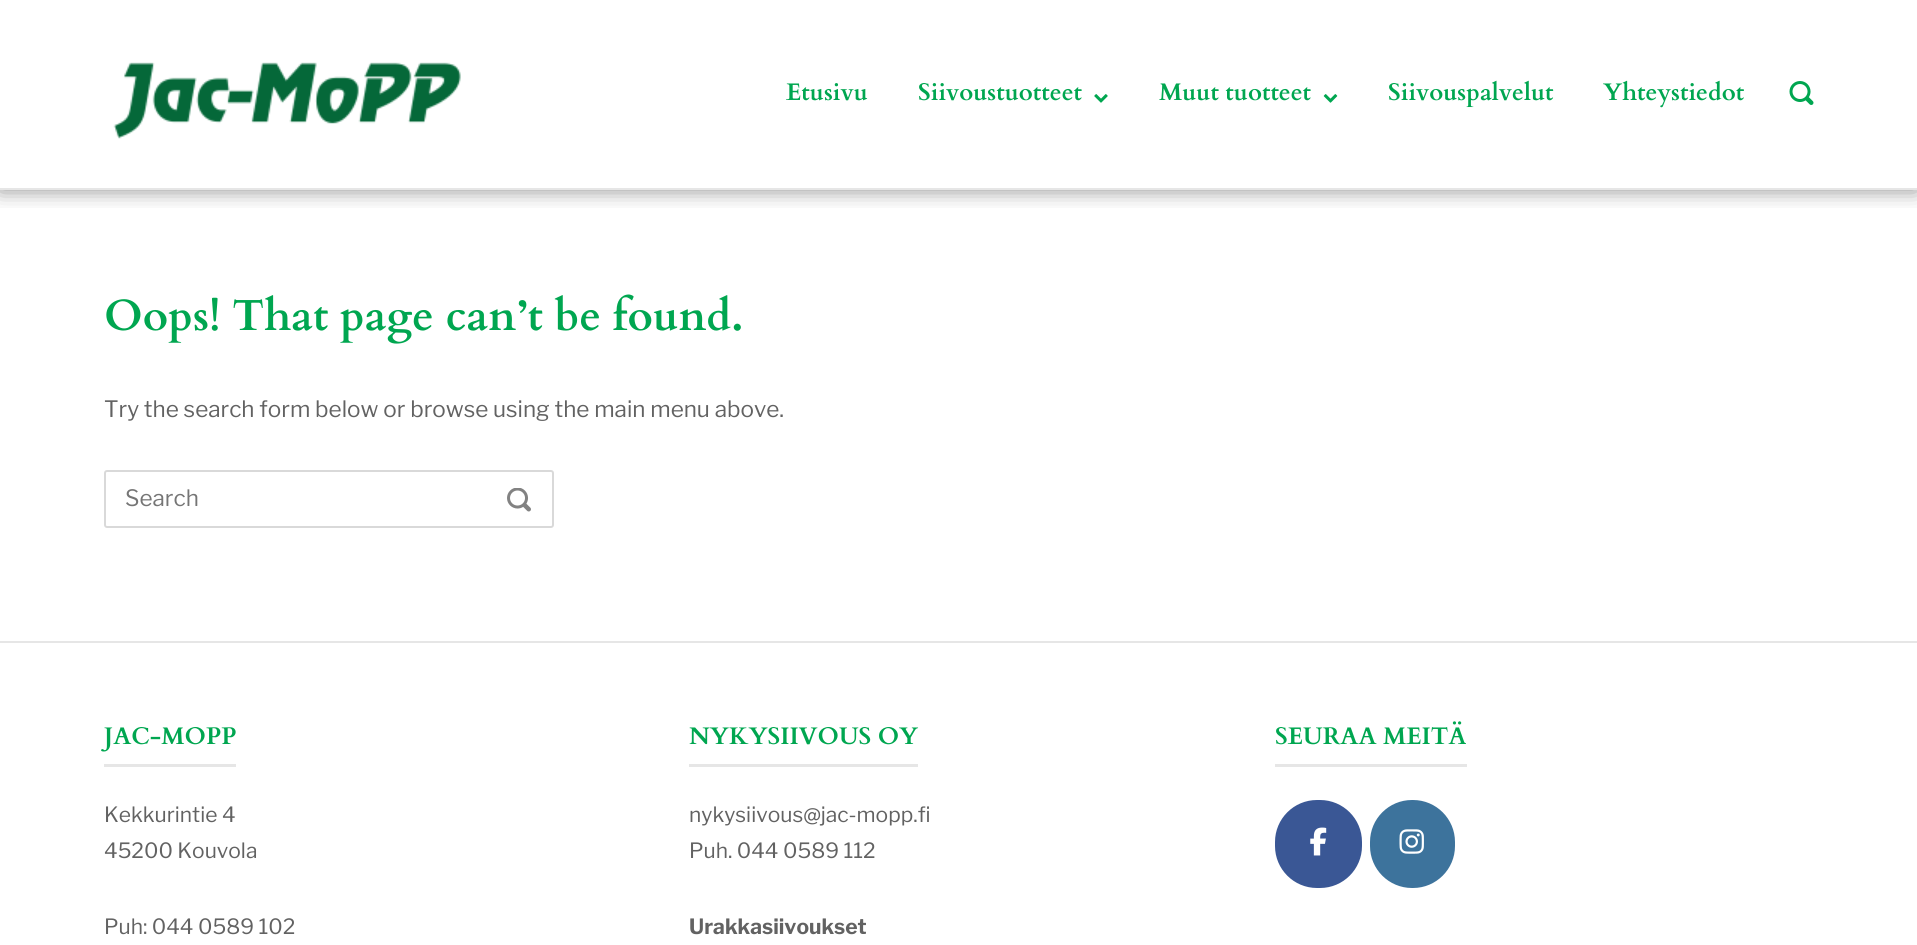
#include <cairo/cairo.h>
#include <math.h>
#include <stddef.h>

typedef struct { double x, y; const char *s; } line_t;
typedef struct { double x, y, w, h; unsigned color; } box_t;
static cairo_t *cr;

static void rgb(unsigned color)
{
	cairo_set_source_rgb(cr, (color >> 16) / 255.0, (color >> 8 & 255) / 255.0, (color & 255) / 255.0);
}

static void rrect(double x, double y, double w, double h, double r)
{
	cairo_new_sub_path(cr);
	cairo_arc(cr, x + w - r, y + h - r, r, 0, M_PI / 2);
	cairo_arc(cr, x + r, y + h - r, r, M_PI / 2, M_PI);
	cairo_arc(cr, x + r, y + r, r, M_PI, 1.5 * M_PI);
	cairo_arc(cr, x + w - r, y + r, r, 1.5 * M_PI, 2 * M_PI);
	cairo_close_path(cr);
}

static void soft_shadow(double x, double y, double w, double h, double r, double blur, double alpha)
{
	cairo_push_group_with_content(cr, CAIRO_CONTENT_ALPHA);
	cairo_set_operator(cr, CAIRO_OPERATOR_SOURCE);
	for (int i = 15; i >= -15 && fmin(w, h) + blur * i / 3 > 0; i -= 2) {
		double e = blur * i / 6;
		cairo_set_source_rgba(cr, 0, 0, 0, alpha * erfc((i - 1) / 8.5) / 2);
		rrect(x - e, y - e, w + 2 * e, h + 2 * e, fmax(0, fmin(r + e + blur * .6, fmin(w, h) / 2 + e)));
		cairo_fill(cr);
	}
	cairo_pattern_t *soft = cairo_pop_group(cr);
	cairo_mask(cr, soft);
	cairo_pattern_destroy(soft);
}

static void image(const char *path, double x, double y, double w, double h)
{
	cairo_surface_t *image = cairo_image_surface_create_from_png(path);
	cairo_save(cr);
	cairo_set_source_surface(cr, image, x, y);
	cairo_rectangle(cr, x, y, w, h);
	cairo_fill(cr);
	cairo_restore(cr);
	cairo_surface_destroy(image);
}

int main(void) {
	cairo_surface_t *surface = cairo_image_surface_create(CAIRO_FORMAT_RGB24, 1917, 945);
	cr = cairo_create(surface);
	cairo_font_options_t *options = cairo_font_options_create();
	cairo_font_options_set_hint_metrics(options, CAIRO_HINT_METRICS_OFF);
	cairo_font_options_set_hint_style(options, CAIRO_HINT_STYLE_NONE);
	cairo_set_font_options(cr, options);
	cairo_set_miter_limit(cr, 4);
	rgb(0xffffff);
	cairo_paint(cr);
	cairo_save(cr);
	cairo_rectangle(cr, 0, 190, 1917, 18);
	cairo_clip(cr);
	rgb(0x000000);
	soft_shadow(0, 0, 1917, 189, 0, 11, 0.5);
	cairo_restore(cr);
	rgb(0xe6e6e6);
	cairo_rectangle(cr, 0, 188, 1917, 2);
	cairo_fill(cr);
	image("img/1.png", 113, 62, 348, 77);
	image("img/2.png", 1094, 94, 14, 9);
	image("img/3.png", 1323, 94, 15, 9);
	image("img/4.png", 1789, 81, 25, 24);
	rrect(105, 471, 448, 56, 2);
	rgb(0xd9d9d9);
	cairo_stroke(cr);
	image("img/5.png", 507, 488, 24, 24);
	{
		static const box_t items[] = {
			{0, 641, 1917, 2, 0xe6e6e6},
			{104, 764, 132, 3, 0xe6e6e6},
			{689, 764, 229, 3, 0xe6e6e6},
			{1275, 764, 192, 3, 0xe6e6e6},
		};
		for (size_t i = 0; i < sizeof items / sizeof *items; i++) {
			rgb(items[i].color);
			cairo_rectangle(cr, items[i].x, items[i].y, items[i].w, items[i].h);
			cairo_fill(cr);
		}
	}
	rgb(0x3a5795);
	rrect(1276, 801, 85, 86, 41);
	cairo_fill_preserve(cr);
	cairo_stroke(cr);
	image("img/6.png", 1310, 827, 17, 29);
	rgb(0x3d739c);
	rrect(1371, 801, 83, 86, 41);
	cairo_fill_preserve(cr);
	cairo_stroke(cr);
	image("img/7.png", 1399, 829, 25, 25);
	cairo_select_font_face(cr, "Cardo", CAIRO_FONT_SLANT_NORMAL, CAIRO_FONT_WEIGHT_BOLD);
	cairo_set_font_size(cr, 24);
	rgb(0x00a650);
	{
		static const line_t items[] = {
			{786, 100, "Etusivu"},
			{918, 100, "Siivoustuotteet"},
			{1159, 100, "Muut tuotteet"},
			{1388, 100, "Siivouspalvelut"},
			{1603, 100, "Yhteystiedot"},
		};
		for (size_t i = 0; i < sizeof items / sizeof *items; i++) {
			cairo_move_to(cr, items[i].x, items[i].y);
			cairo_show_text(cr, items[i].s);
		}
	}
	cairo_set_font_size(cr, 43.5);
	cairo_move_to(cr, 104, 330);
	cairo_show_text(cr, "Oops! That page can’t be found.");
	cairo_select_font_face(cr, "Libre Franklin", CAIRO_FONT_SLANT_NORMAL, CAIRO_FONT_WEIGHT_NORMAL);
	cairo_set_font_size(cr, 22.5);
	rgb(0x626262);
	cairo_move_to(cr, 104, 417);
	cairo_show_text(cr, "Try the search form below or browse using the main menu above.");
	rgb(0x757575);
	cairo_move_to(cr, 125, 506);
	cairo_show_text(cr, "Search");
	cairo_select_font_face(cr, "Cardo", CAIRO_FONT_SLANT_NORMAL, CAIRO_FONT_WEIGHT_BOLD);
	cairo_set_font_size(cr, 24);
	rgb(0x00a650);
	cairo_move_to(cr, 104, 744);
	cairo_show_text(cr, "JAC-MOPP");
	cairo_select_font_face(cr, "Libre Franklin", CAIRO_FONT_SLANT_NORMAL, CAIRO_FONT_WEIGHT_NORMAL);
	cairo_set_font_size(cr, 21);
	rgb(0x626262);
	{
		static const line_t items[] = {
			{104, 822, "Kekkurintie 4"},
			{104, 858, "45200 Kouvola"},
			{104, 934, "Puh: 044 0589 102"},
		};
		for (size_t i = 0; i < sizeof items / sizeof *items; i++) {
			cairo_move_to(cr, items[i].x, items[i].y);
			cairo_show_text(cr, items[i].s);
		}
	}
	cairo_select_font_face(cr, "Cardo", CAIRO_FONT_SLANT_NORMAL, CAIRO_FONT_WEIGHT_BOLD);
	cairo_set_font_size(cr, 24);
	rgb(0x00a650);
	cairo_move_to(cr, 689, 744);
	cairo_show_text(cr, "NYKYSIIVOUS OY");
	cairo_select_font_face(cr, "Libre Franklin", CAIRO_FONT_SLANT_NORMAL, CAIRO_FONT_WEIGHT_NORMAL);
	cairo_set_font_size(cr, 21);
	rgb(0x626262);
	cairo_move_to(cr, 689, 822);
	cairo_show_text(cr, "nykysiivous@jac-mopp.fi");
	cairo_move_to(cr, 689, 858);
	cairo_show_text(cr, "Puh. 044 0589 112");
	cairo_select_font_face(cr, "Libre Franklin", CAIRO_FONT_SLANT_NORMAL, CAIRO_FONT_WEIGHT_BOLD);
	cairo_move_to(cr, 689, 934);
	cairo_show_text(cr, "Urakkasiivoukset");
	cairo_select_font_face(cr, "Cardo", CAIRO_FONT_SLANT_NORMAL, CAIRO_FONT_WEIGHT_BOLD);
	cairo_set_font_size(cr, 24);
	rgb(0x00a650);
	cairo_move_to(cr, 1275, 744);
	cairo_show_text(cr, "SEURAA MEITÄ");
	cairo_surface_write_to_png(surface, "page.png");
	cairo_font_options_destroy(options);
	cairo_destroy(cr);
	cairo_surface_destroy(surface);
	return 0;
}
